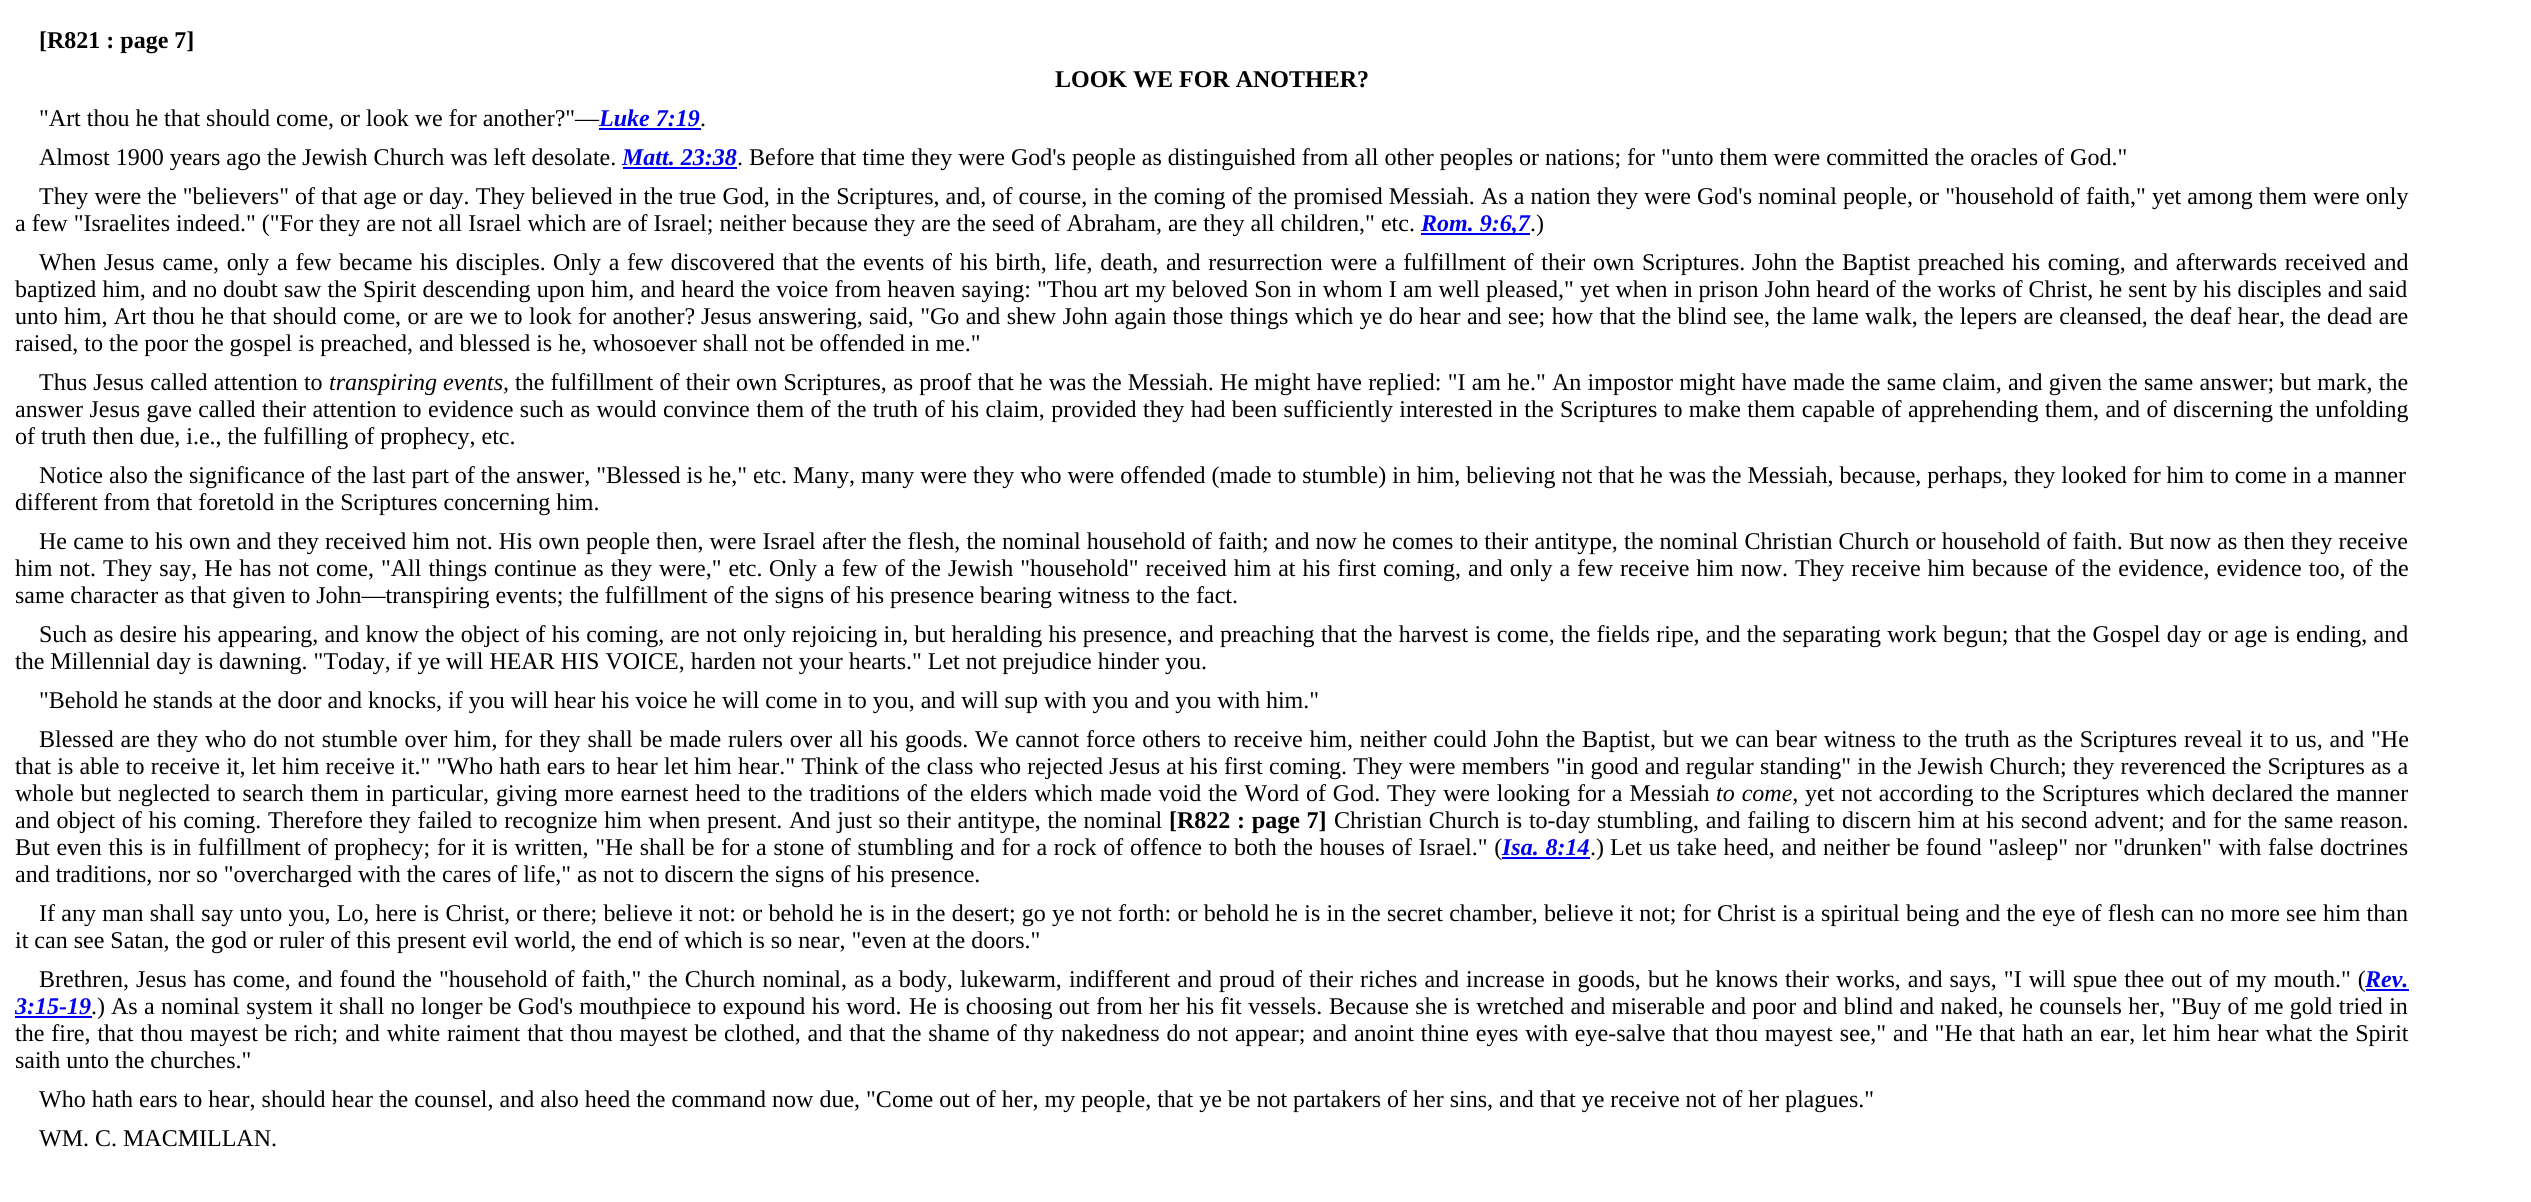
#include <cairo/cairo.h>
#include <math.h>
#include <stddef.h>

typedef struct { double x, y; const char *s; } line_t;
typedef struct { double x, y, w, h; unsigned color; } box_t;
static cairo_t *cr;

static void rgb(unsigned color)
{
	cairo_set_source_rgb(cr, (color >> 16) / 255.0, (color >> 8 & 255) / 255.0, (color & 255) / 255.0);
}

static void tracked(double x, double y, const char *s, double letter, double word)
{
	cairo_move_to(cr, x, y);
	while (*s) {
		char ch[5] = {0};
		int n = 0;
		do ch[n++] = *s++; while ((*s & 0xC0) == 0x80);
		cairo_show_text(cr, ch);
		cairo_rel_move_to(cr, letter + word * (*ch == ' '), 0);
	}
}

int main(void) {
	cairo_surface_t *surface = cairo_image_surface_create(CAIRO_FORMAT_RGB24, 2531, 1202);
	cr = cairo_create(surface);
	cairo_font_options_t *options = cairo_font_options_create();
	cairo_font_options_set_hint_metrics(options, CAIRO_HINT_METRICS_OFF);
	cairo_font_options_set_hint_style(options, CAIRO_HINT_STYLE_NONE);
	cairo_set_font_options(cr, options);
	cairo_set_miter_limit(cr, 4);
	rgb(0xffffff);
	cairo_paint(cr);
	{
		static const box_t items[] = {
			{623, 167, 114, 2, 0x0000ee},
			{1421, 233, 109, 2, 0x0000ee},
			{1502, 857, 88, 2, 0x0000ee},
			{2366, 989, 43, 2, 0x0000ee},
			{15, 1016, 77, 2, 0x0000ee},
		};
		for (size_t i = 0; i < sizeof items / sizeof *items; i++) {
			rgb(items[i].color);
			cairo_rectangle(cr, items[i].x, items[i].y, items[i].w, items[i].h);
			cairo_fill(cr);
		}
	}
	cairo_select_font_face(cr, "Liberation Serif", CAIRO_FONT_SLANT_NORMAL, CAIRO_FONT_WEIGHT_BOLD);
	cairo_set_font_size(cr, 24);
	rgb(0x000000);
	cairo_move_to(cr, 39, 48);
	cairo_show_text(cr, "[R821 : page 7]");
	cairo_move_to(cr, 1055, 87);
	cairo_show_text(cr, "LOOK WE FOR ANOTHER?");
	cairo_select_font_face(cr, "Liberation Serif", CAIRO_FONT_SLANT_NORMAL, CAIRO_FONT_WEIGHT_NORMAL);
	cairo_move_to(cr, 39, 126);
	cairo_show_text(cr, "\"Art thou he that should come, or look we for another?\"—");
	cairo_select_font_face(cr, "Liberation Serif", CAIRO_FONT_SLANT_ITALIC, CAIRO_FONT_WEIGHT_BOLD);
	rgb(0x0000ee);
	cairo_move_to(cr, 599, 126);
	cairo_show_text(cr, "Luke 7:19");
	cairo_rectangle(cr, 599, 128, 102, 2);
	cairo_fill(cr);
	cairo_select_font_face(cr, "Liberation Serif", CAIRO_FONT_SLANT_NORMAL, CAIRO_FONT_WEIGHT_NORMAL);
	rgb(0x000000);
	cairo_move_to(cr, 700, 126);
	cairo_show_text(cr, ".");
	cairo_move_to(cr, 39, 165);
	cairo_show_text(cr, "Almost 1900 years ago the Jewish Church was left desolate.");
	cairo_select_font_face(cr, "Liberation Serif", CAIRO_FONT_SLANT_ITALIC, CAIRO_FONT_WEIGHT_BOLD);
	rgb(0x0000ee);
	cairo_move_to(cr, 622, 165);
	cairo_show_text(cr, "Matt. 23:38");
	cairo_select_font_face(cr, "Liberation Serif", CAIRO_FONT_SLANT_NORMAL, CAIRO_FONT_WEIGHT_NORMAL);
	rgb(0x000000);
	cairo_move_to(cr, 737, 165);
	cairo_show_text(cr, ". Before that time they were God's people as distinguished from all other peoples or nations; for \"unto them were committed the oracles of God.\"");
	tracked(39, 204, "They were the \"believers\" of that age or day. They believed in the true God, in the Scriptures, and, of course, in the coming of the promised Messiah. As a nation they were God's nominal people, or \"household of faith,\" yet among them were only", 0, 0.15);
	cairo_move_to(cr, 15, 231);
	cairo_show_text(cr, "a few \"Israelites indeed.\" (\"For they are not all Israel which are of Israel; neither because they are the seed of Abraham, are they all children,\" etc.");
	cairo_select_font_face(cr, "Liberation Serif", CAIRO_FONT_SLANT_ITALIC, CAIRO_FONT_WEIGHT_BOLD);
	rgb(0x0000ee);
	cairo_move_to(cr, 1421, 231);
	cairo_show_text(cr, "Rom. 9:6,7");
	cairo_select_font_face(cr, "Liberation Serif", CAIRO_FONT_SLANT_NORMAL, CAIRO_FONT_WEIGHT_NORMAL);
	rgb(0x000000);
	cairo_move_to(cr, 1530, 231);
	cairo_show_text(cr, ".)");
	{
		static const line_t items[] = {
			{39, 270, "When Jesus came, only a few became his disciples."},
			{553, 270, "Only a few discovered that the events of his birth, life, death, and resurrection were a fulfillment of their own Scriptures."},
			{1752, 270, "John the Baptist preached his coming, and afterwards received and"},
		};
		for (size_t i = 0; i < sizeof items / sizeof *items; i++) {
			tracked(items[i].x, items[i].y, items[i].s, 0, 1.7);
		}
	}
	tracked(15, 297, "baptized him, and no doubt saw the Spirit descending upon him, and heard the voice from heaven saying: \"Thou art my beloved Son in whom I am well pleased,\" yet when in prison John heard of the works of Christ, he sent by his disciples and said", 0, 0.2);
	tracked(15, 324, "unto him, Art thou he that should come, or are we to look for another?", 0, 0.4);
	tracked(701, 324, "Jesus answering, said, \"Go and shew John again those things which ye do hear and see; how that the blind see, the lame walk, the lepers are cleansed, the deaf hear, the dead are", 0, 0.4);
	cairo_move_to(cr, 15, 351);
	cairo_show_text(cr, "raised, to the poor the gospel is preached, and blessed is he, whosoever shall not be offended in me.\"");
	tracked(39, 390, "Thus Jesus called attention to", 0, 0.25);
	cairo_select_font_face(cr, "Liberation Serif", CAIRO_FONT_SLANT_ITALIC, CAIRO_FONT_WEIGHT_NORMAL);
	cairo_move_to(cr, 329, 390);
	cairo_show_text(cr, "transpiring events,");
	cairo_select_font_face(cr, "Liberation Serif", CAIRO_FONT_SLANT_NORMAL, CAIRO_FONT_WEIGHT_NORMAL);
	tracked(515, 390, "the fulfillment of their own Scriptures, as proof that he was the Messiah. He might have replied: \"I am he.\" An impostor might have made the same claim, and given the same answer; but mark, the", 0, 0.25);
	tracked(15, 417, "answer Jesus gave called their attention to evidence such as would convince them of the truth of his claim, provided they had been sufficiently interested in the Scriptures to make them capable of apprehending them, and of discerning the unfolding", 0, 0.45);
	{
		static const line_t items[] = {
			{15, 444, "of truth then due, i.e., the fulfilling of prophecy, etc."},
			{39, 483, "Notice also the significance of the last part of the answer, \"Blessed is he,\" etc. Many, many were they who were offended (made to stumble) in him, believing not that he was the Messiah, because, perhaps, they looked for him to come in a manner"},
			{15, 510, "different from that foretold in the Scriptures concerning him."},
		};
		for (size_t i = 0; i < sizeof items / sizeof *items; i++) {
			cairo_move_to(cr, items[i].x, items[i].y);
			cairo_show_text(cr, items[i].s);
		}
	}
	tracked(39, 549, "He came to his own and they received him not. His own people then, were Israel after the flesh, the nominal household of faith; and now he comes to their antitype, the nominal Christian Church or household of faith. But now as then they receive", 0, 0.2);
	{
		static const line_t items[] = {
			{15, 576, "him not."},
			{103, 576, "They say, He has not come, \"All things continue as they were,\" etc."},
			{769, 576, "Only a few of the Jewish \"household\" received him at his first coming, and only a few receive him now. They receive him because of the evidence, evidence too, of the"},
		};
		for (size_t i = 0; i < sizeof items / sizeof *items; i++) {
			tracked(items[i].x, items[i].y, items[i].s, 0, 1);
		}
	}
	cairo_move_to(cr, 15, 603);
	cairo_show_text(cr, "same character as that given to John—transpiring events; the fulfillment of the signs of his presence bearing witness to the fact.");
	tracked(39, 642, "Such as desire his appearing, and know the object of his coming, are not only rejoicing in, but heralding his presence, and preaching that the harvest is come, the fields ripe, and the separating work begun; that the Gospel day or age is ending, and", 0, 0.3);
	cairo_move_to(cr, 15, 669);
	cairo_show_text(cr, "the Millennial day is dawning. \"Today, if ye will HEAR HIS VOICE, harden not your hearts.\" Let not prejudice hinder you.");
	cairo_move_to(cr, 39, 708);
	cairo_show_text(cr, "\"Behold he stands at the door and knocks, if you will hear his voice he will come in to you, and will sup with you and you with him.\"");
	tracked(39, 747, "Blessed are they who do not stumble over him, for they shall be made rulers over all his goods.", 0, 0.9);
	tracked(975, 747, "We cannot force others to receive him, neither could John the Baptist, but we can bear witness to the truth as the Scriptures reveal it to us, and \"He", 0, 0.9);
	tracked(15, 774, "that is able to receive it, let him receive it.\" \"Who hath ears to hear let him hear.\" Think of the class who rejected Jesus at his first coming. They were members \"in good and regular standing\" in the Jewish Church; they reverenced the Scriptures as a", 0, 0.25);
	tracked(15, 801, "whole but neglected to search them in particular, giving more earnest heed to the traditions of the elders which made void the Word of God.", 0, 0.9);
	tracked(1387, 801, "They were looking for a Messiah", 0, 0.9);
	cairo_select_font_face(cr, "Liberation Serif", CAIRO_FONT_SLANT_ITALIC, CAIRO_FONT_WEIGHT_NORMAL);
	tracked(1716, 801, "to come,", 0, 1);
	cairo_select_font_face(cr, "Liberation Serif", CAIRO_FONT_SLANT_NORMAL, CAIRO_FONT_WEIGHT_NORMAL);
	tracked(1805, 801, "yet not according to the Scriptures which declared the manner", 0, 0.9);
	tracked(15, 828, "and object of his coming.", 0, 0.75);
	tracked(268, 828, "Therefore they failed to recognize him when present. And just so their antitype, the nominal", 0, 0.75);
	cairo_select_font_face(cr, "Liberation Serif", CAIRO_FONT_SLANT_NORMAL, CAIRO_FONT_WEIGHT_BOLD);
	tracked(1169, 828, "[R822 : page 7]", 0, 0.75);
	cairo_select_font_face(cr, "Liberation Serif", CAIRO_FONT_SLANT_NORMAL, CAIRO_FONT_WEIGHT_NORMAL);
	tracked(1334, 828, "Christian Church is to-day stumbling, and failing to discern him at his second advent; and for the same reason.", 0, 0.75);
	tracked(15, 855, "But even this is in fulfillment of prophecy; for it is written, \"He shall be for a stone of stumbling and for a rock of offence to both the houses of Israel.\" (", 0, 0.75);
	cairo_select_font_face(cr, "Liberation Serif", CAIRO_FONT_SLANT_ITALIC, CAIRO_FONT_WEIGHT_BOLD);
	rgb(0x0000ee);
	tracked(1502, 855, "Isa. 8:14", 0, 0.75);
	cairo_select_font_face(cr, "Liberation Serif", CAIRO_FONT_SLANT_NORMAL, CAIRO_FONT_WEIGHT_NORMAL);
	rgb(0x000000);
	cairo_move_to(cr, 1590, 855);
	cairo_show_text(cr, ".)");
	tracked(1610, 855, "Let us take heed, and neither be found \"asleep\" nor \"drunken\" with false doctrines", 0, 0.75);
	cairo_move_to(cr, 15, 882);
	cairo_show_text(cr, "and traditions, nor so \"overcharged with the cares of life,\" as not to discern the signs of his presence.");
	tracked(39, 921, "If any man shall say unto you, Lo, here is Christ, or there; believe it not: or behold he is in the desert; go ye not forth: or behold he is in the secret chamber, believe it not; for Christ is a spiritual being and the eye of flesh can no more see him than", 0, 0.25);
	cairo_move_to(cr, 15, 948);
	cairo_show_text(cr, "it can see Satan, the god or ruler of this present evil world, the end of which is so near, \"even at the doors.\"");
	tracked(39, 987, "Brethren, Jesus has come, and found the \"household of faith,\" the Church nominal, as a body, lukewarm, indifferent and proud of their riches and increase in goods, but he knows their works, and says, \"I will spue thee out of my mouth.\" (", 0, 1.05);
	cairo_select_font_face(cr, "Liberation Serif", CAIRO_FONT_SLANT_ITALIC, CAIRO_FONT_WEIGHT_BOLD);
	rgb(0x0000ee);
	cairo_move_to(cr, 2365, 987);
	cairo_show_text(cr, "Rev.");
	cairo_move_to(cr, 15, 1014);
	cairo_show_text(cr, "3:15-19");
	cairo_select_font_face(cr, "Liberation Serif", CAIRO_FONT_SLANT_NORMAL, CAIRO_FONT_WEIGHT_NORMAL);
	rgb(0x000000);
	cairo_move_to(cr, 91, 1014);
	cairo_show_text(cr, ".)");
	{
		static const line_t items[] = {
			{111, 1014, "As a nominal system it shall no longer be God's mouthpiece to expound his word."},
			{909, 1014, "He is choosing out from her his fit vessels."},
			{1329, 1014, "Because she is wretched and miserable and poor and blind and naked, he counsels her, \"Buy of me gold tried in"},
		};
		for (size_t i = 0; i < sizeof items / sizeof *items; i++) {
			tracked(items[i].x, items[i].y, items[i].s, 0, 0.4);
		}
	}
	tracked(15, 1041, "the fire, that thou mayest be rich; and white raiment that thou mayest be clothed, and that the shame of thy nakedness do not appear; and anoint thine eyes with eye-salve that thou mayest see,\" and \"He that hath an ear, let him hear what the Spirit", 0, 0.9);
	{
		static const line_t items[] = {
			{15, 1068, "saith unto the churches.\""},
			{39, 1107, "Who hath ears to hear, should hear the counsel, and also heed the command now due, \"Come out of her, my people, that ye be not partakers of her sins, and that ye receive not of her plagues.\""},
			{39, 1146, "WM. C. MACMILLAN."},
		};
		for (size_t i = 0; i < sizeof items / sizeof *items; i++) {
			cairo_move_to(cr, items[i].x, items[i].y);
			cairo_show_text(cr, items[i].s);
		}
	}
	cairo_surface_write_to_png(surface, "page.png");
	cairo_font_options_destroy(options);
	cairo_destroy(cr);
	cairo_surface_destroy(surface);
	return 0;
}
